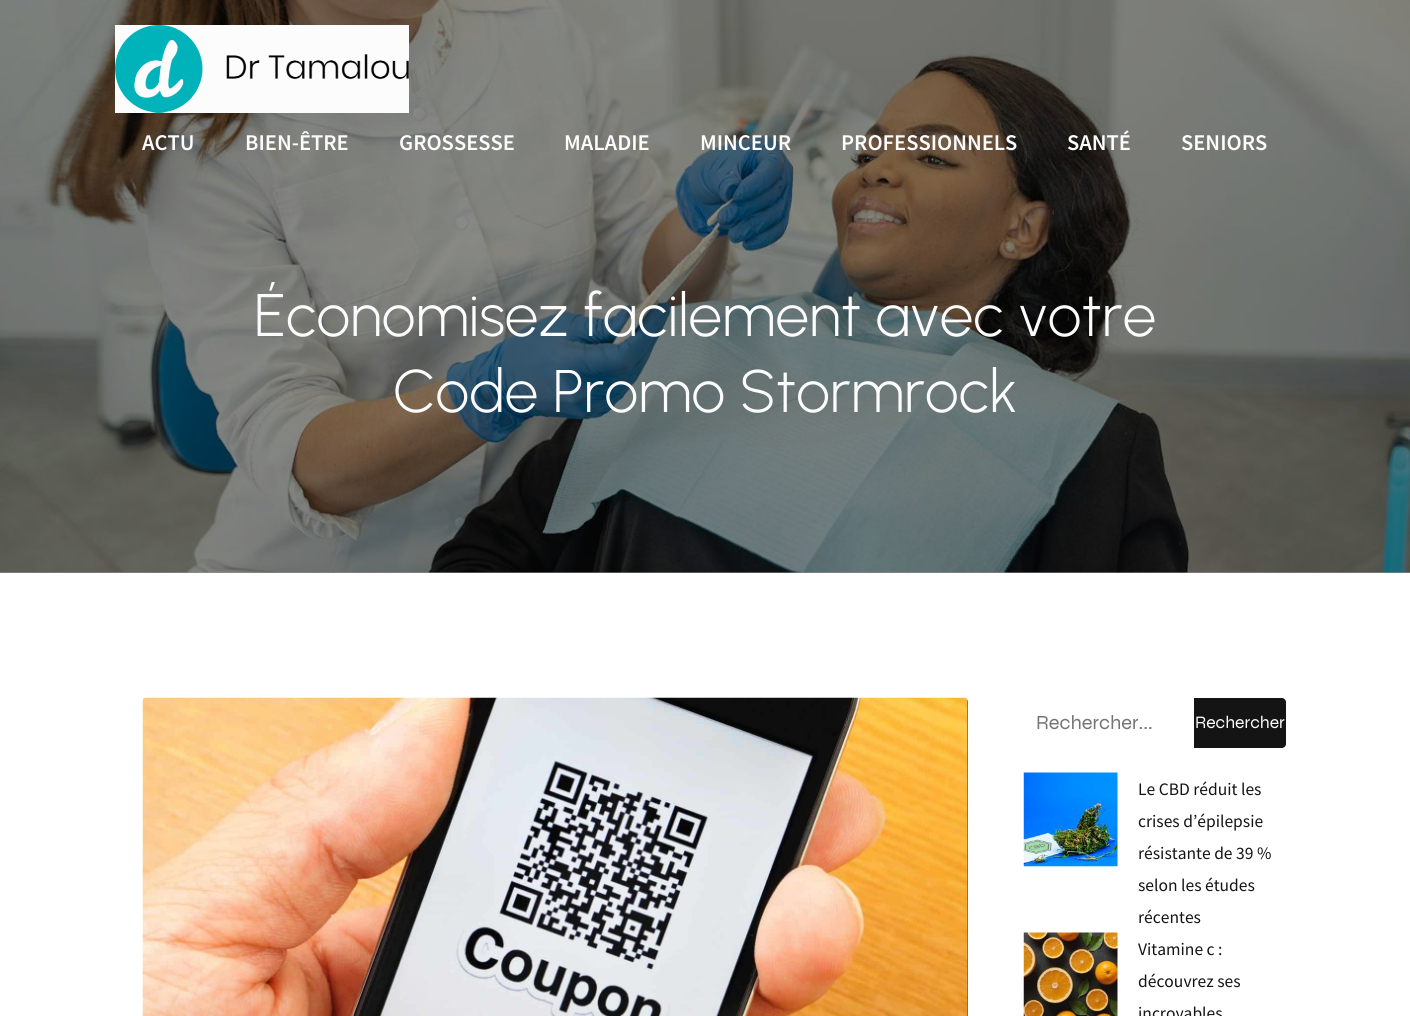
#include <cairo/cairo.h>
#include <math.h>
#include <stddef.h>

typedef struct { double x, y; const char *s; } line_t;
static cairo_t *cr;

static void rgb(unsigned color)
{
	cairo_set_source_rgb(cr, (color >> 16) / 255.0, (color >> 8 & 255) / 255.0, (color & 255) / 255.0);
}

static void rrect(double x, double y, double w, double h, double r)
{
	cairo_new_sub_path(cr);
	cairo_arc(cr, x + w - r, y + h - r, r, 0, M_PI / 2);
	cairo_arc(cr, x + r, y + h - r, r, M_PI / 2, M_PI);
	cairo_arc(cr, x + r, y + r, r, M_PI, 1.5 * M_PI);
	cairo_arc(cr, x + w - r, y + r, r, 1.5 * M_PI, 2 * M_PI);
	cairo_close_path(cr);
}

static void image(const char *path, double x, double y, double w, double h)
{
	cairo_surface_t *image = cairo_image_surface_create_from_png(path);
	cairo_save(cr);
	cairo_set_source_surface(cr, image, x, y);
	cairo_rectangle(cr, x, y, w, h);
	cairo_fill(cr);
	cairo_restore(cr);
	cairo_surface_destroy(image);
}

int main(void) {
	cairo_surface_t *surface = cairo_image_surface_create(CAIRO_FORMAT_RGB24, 1410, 1016);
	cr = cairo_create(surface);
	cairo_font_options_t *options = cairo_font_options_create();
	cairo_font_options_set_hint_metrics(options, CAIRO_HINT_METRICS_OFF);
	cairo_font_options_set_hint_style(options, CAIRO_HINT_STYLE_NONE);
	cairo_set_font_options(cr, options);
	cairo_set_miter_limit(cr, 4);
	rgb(0xffffff);
	cairo_paint(cr);
	rgb(0x999999);
	cairo_rectangle(cr, 0, 572, 1410, 1);
	cairo_fill(cr);
	image("img/2.png", 0, 0, 1410, 573);
	rgb(0xfcfcfd);
	cairo_rectangle(cr, 115, 25, 294, 88);
	cairo_fill(cr);
	image("img/1.png", 115, 25, 294, 88);
	rgb(0x735095);
	rrect(143, 698, 825, 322, 4);
	cairo_fill(cr);
	image("img/3.png", 142, 697, 826, 319);
	rgb(0x141414);
	cairo_new_path(cr);
	cairo_move_to(cr, 1194, 698);
	cairo_line_to(cr, 1282, 698);
	cairo_curve_to(cr, 1284, 698, 1286, 700, 1286, 702);
	cairo_line_to(cr, 1286, 744);
	cairo_curve_to(cr, 1286, 746, 1284, 748, 1282, 748);
	cairo_line_to(cr, 1194, 748);
	cairo_close_path(cr);
	cairo_fill(cr);
	image("img/4.png", 1023, 772, 95, 95);
	image("img/5.png", 1023, 932, 95, 84);
	cairo_select_font_face(cr, "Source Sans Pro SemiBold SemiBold", CAIRO_FONT_SLANT_NORMAL, CAIRO_FONT_WEIGHT_NORMAL);
	cairo_set_font_size(cr, 22.5);
	rgb(0xfcfcfd);
	{
		static const line_t items[] = {
			{142, 150, "ACTU"},
			{245, 150, "BIEN-ÊTRE"},
			{399, 150, "GROSSESSE"},
			{564, 150, "MALADIE"},
			{700, 150, "MINCEUR"},
			{841, 150, "PROFESSIONNELS"},
			{1067, 150, "SANTÉ"},
			{1181, 150, "SENIORS"},
		};
		for (size_t i = 0; i < sizeof items / sizeof *items; i++) {
			cairo_move_to(cr, items[i].x, items[i].y);
			cairo_show_text(cr, items[i].s);
		}
	}
	cairo_select_font_face(cr, "Urbanist Light", CAIRO_FONT_SLANT_NORMAL, CAIRO_FONT_WEIGHT_NORMAL);
	cairo_set_font_size(cr, 60);
	cairo_move_to(cr, 254, 336);
	cairo_show_text(cr, "Économisez facilement avec votre");
	cairo_move_to(cr, 393, 412);
	cairo_show_text(cr, "Code Promo Stormrock");
	cairo_select_font_face(cr, "Syne", CAIRO_FONT_SLANT_NORMAL, CAIRO_FONT_WEIGHT_NORMAL);
	cairo_set_font_size(cr, 20);
	rgb(0x757575);
	cairo_move_to(cr, 1036, 729);
	cairo_show_text(cr, "Rechercher...");
	cairo_set_font_size(cr, 17.5);
	rgb(0xfcfcfd);
	cairo_move_to(cr, 1195, 728);
	cairo_show_text(cr, "Rechercher");
	cairo_select_font_face(cr, "Source Sans Pro", CAIRO_FONT_SLANT_NORMAL, CAIRO_FONT_WEIGHT_NORMAL);
	rgb(0x141414);
	{
		static const line_t items[] = {
			{1138, 795, "Le CBD réduit les"},
			{1138, 827, "crises d’épilepsie"},
			{1138, 859, "résistante de 39 %"},
			{1138, 891, "selon les études"},
			{1138, 923, "récentes"},
			{1138, 955, "Vitamine c :"},
			{1138, 987, "découvrez ses"},
			{1138, 1019, "incroyables"},
		};
		for (size_t i = 0; i < sizeof items / sizeof *items; i++) {
			cairo_move_to(cr, items[i].x, items[i].y);
			cairo_show_text(cr, items[i].s);
		}
	}
	cairo_surface_write_to_png(surface, "page.png");
	cairo_font_options_destroy(options);
	cairo_destroy(cr);
	cairo_surface_destroy(surface);
	return 0;
}
